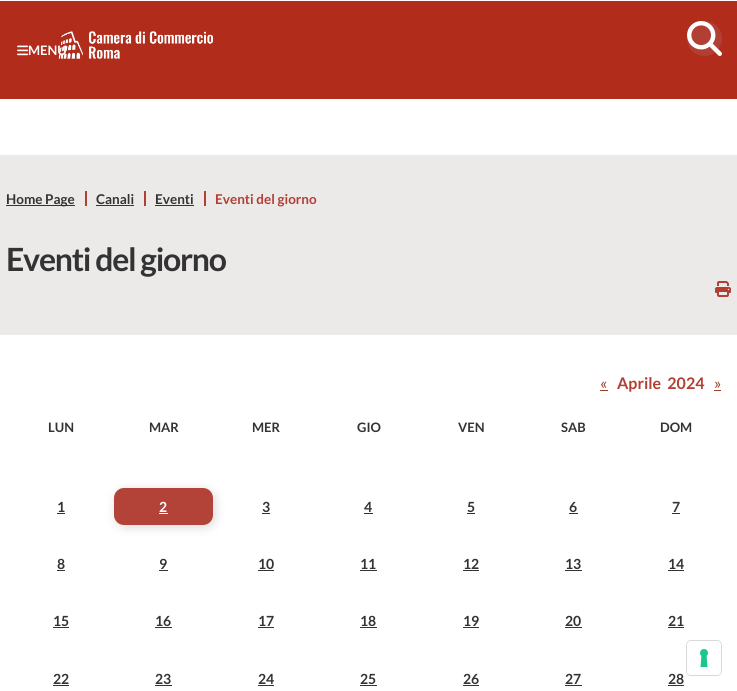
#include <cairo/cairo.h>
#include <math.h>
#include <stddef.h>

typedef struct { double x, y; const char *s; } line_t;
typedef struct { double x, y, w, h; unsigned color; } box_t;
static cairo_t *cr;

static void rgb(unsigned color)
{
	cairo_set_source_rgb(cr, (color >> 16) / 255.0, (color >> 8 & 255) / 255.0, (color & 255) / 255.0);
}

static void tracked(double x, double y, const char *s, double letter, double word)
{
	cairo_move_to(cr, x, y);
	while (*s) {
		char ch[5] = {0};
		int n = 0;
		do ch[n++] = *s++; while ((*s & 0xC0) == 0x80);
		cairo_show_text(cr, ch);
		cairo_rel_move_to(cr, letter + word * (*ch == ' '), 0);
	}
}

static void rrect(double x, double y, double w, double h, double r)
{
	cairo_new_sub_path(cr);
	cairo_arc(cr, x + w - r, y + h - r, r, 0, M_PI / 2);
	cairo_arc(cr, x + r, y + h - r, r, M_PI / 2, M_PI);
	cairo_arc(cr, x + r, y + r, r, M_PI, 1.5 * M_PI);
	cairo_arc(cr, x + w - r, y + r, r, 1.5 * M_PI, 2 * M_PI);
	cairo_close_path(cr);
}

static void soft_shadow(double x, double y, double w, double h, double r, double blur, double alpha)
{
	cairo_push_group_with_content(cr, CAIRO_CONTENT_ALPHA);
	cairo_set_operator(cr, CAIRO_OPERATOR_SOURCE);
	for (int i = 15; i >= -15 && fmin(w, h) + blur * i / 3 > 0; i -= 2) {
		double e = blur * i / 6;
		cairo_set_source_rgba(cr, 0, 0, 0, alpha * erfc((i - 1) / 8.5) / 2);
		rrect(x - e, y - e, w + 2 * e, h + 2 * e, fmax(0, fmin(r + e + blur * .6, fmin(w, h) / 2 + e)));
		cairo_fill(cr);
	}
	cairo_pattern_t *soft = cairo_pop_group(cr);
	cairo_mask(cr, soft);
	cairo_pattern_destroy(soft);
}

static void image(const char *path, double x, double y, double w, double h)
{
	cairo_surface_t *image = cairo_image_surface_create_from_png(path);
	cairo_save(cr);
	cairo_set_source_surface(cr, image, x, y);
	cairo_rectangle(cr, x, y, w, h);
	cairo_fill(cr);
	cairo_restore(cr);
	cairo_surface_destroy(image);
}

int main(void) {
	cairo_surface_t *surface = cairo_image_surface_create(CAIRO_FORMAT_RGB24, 737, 691);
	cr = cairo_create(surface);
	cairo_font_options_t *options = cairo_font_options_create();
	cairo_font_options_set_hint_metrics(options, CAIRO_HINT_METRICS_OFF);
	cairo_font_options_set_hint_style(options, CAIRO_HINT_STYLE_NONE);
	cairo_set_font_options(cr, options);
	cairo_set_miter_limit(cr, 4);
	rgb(0xffffff);
	cairo_paint(cr);
	rgb(0xb12c1b);
	cairo_rectangle(cr, 0, 1, 737, 98);
	cairo_fill(cr);
	image("img/1.png", 58, 31, 155, 28);
	rgb(0xb13f34);
	cairo_arc(cr, 704.5, 38.5, 17.5, 0, 2 * M_PI);
	cairo_fill(cr);
	image("img/2.png", 687, 21, 35, 35);
	image("img/3.png", 17, 45, 12, 11);
	{
		static const box_t items[] = {
			{0, 155, 737, 180, 0xece9e9},
			{6, 205, 69, 1, 0x333333},
			{85, 191, 2, 15, 0xb13f34},
			{96, 205, 38, 1, 0x333333},
			{144, 191, 2, 15, 0xb13f34},
			{155, 205, 39, 1, 0x333333},
			{204, 191, 2, 15, 0xb13f34},
		};
		for (size_t i = 0; i < sizeof items / sizeof *items; i++) {
			rgb(items[i].color);
			cairo_rectangle(cr, items[i].x, items[i].y, items[i].w, items[i].h);
			cairo_fill(cr);
		}
	}
	image("img/4.png", 715, 281, 16, 16);
	{
		static const box_t items[] = {
			{600, 390, 8, 1, 0x953f24},
			{714, 390, 7, 1, 0x953f24},
			{57, 513, 8, 1, 0x333333},
		};
		for (size_t i = 0; i < sizeof items / sizeof *items; i++) {
			rgb(items[i].color);
			cairo_rectangle(cr, items[i].x, items[i].y, items[i].w, items[i].h);
			cairo_fill(cr);
		}
	}
	rgb(0xcccbcb);
	soft_shadow(116, 490, 99, 37, 10, 5, 0.75);
	rgb(0xb34338);
	rrect(114, 488, 99, 37, 10);
	cairo_fill(cr);
	{
		static const box_t items[] = {
			{159, 513, 9, 1, 0xffffff},
			{262, 513, 8, 1, 0x333333},
			{364, 513, 9, 1, 0x333333},
			{467, 513, 8, 1, 0x333333},
			{569, 513, 9, 1, 0x333333},
			{672, 513, 8, 1, 0x333333},
			{57, 570, 8, 1, 0x333333},
			{159, 570, 9, 1, 0x333333},
			{258, 570, 16, 1, 0x333333},
			{360, 570, 17, 1, 0x333333},
			{463, 570, 16, 1, 0x333333},
			{565, 570, 17, 1, 0x333333},
			{668, 570, 16, 1, 0x333333},
			{53, 627, 16, 1, 0x333333},
			{155, 627, 17, 1, 0x333333},
			{258, 627, 16, 1, 0x333333},
			{360, 627, 17, 1, 0x333333},
			{463, 627, 16, 1, 0x333333},
			{565, 627, 17, 1, 0x333333},
			{668, 627, 16, 1, 0x333333},
			{53, 685, 16, 1, 0x333333},
			{155, 685, 17, 1, 0x333333},
			{258, 685, 16, 1, 0x333333},
			{360, 685, 17, 1, 0x333333},
			{463, 685, 16, 1, 0x333333},
			{565, 685, 17, 1, 0x333333},
			{668, 685, 16, 1, 0x333333},
		};
		for (size_t i = 0; i < sizeof items / sizeof *items; i++) {
			rgb(items[i].color);
			cairo_rectangle(cr, items[i].x, items[i].y, items[i].w, items[i].h);
			cairo_fill(cr);
		}
	}
	rrect(686.5, 640.5, 35, 35, 4.5);
	rgb(0xd9d9d9);
	cairo_set_line_width(cr, 1);
	cairo_stroke(cr);
	rgb(0xffffff);
	rrect(687, 641, 34, 34, 4);
	cairo_fill(cr);
	image("img/5.png", 700, 649, 8, 18);
	cairo_select_font_face(cr, "Lato", CAIRO_FONT_SLANT_NORMAL, CAIRO_FONT_WEIGHT_BOLD);
	cairo_set_font_size(cr, 13);
	cairo_move_to(cr, 28, 55);
	cairo_show_text(cr, "MENU");
	cairo_set_font_size(cr, 13.5);
	rgb(0x333333);
	{
		static const line_t items[] = {
			{6, 204, "Home Page"},
			{96, 204, "Canali"},
			{155, 204, "Eventi"},
		};
		for (size_t i = 0; i < sizeof items / sizeof *items; i++) {
			cairo_move_to(cr, items[i].x, items[i].y);
			cairo_show_text(cr, items[i].s);
		}
	}
	rgb(0xb13f34);
	cairo_move_to(cr, 215, 204);
	cairo_show_text(cr, "Eventi del giorno");
	cairo_set_font_size(cr, 32);
	rgb(0x333333);
	tracked(6, 271, "Eventi del giorno", -1.25, 0);
	cairo_select_font_face(cr, "Lato", CAIRO_FONT_SLANT_NORMAL, CAIRO_FONT_WEIGHT_NORMAL);
	cairo_set_font_size(cr, 16);
	rgb(0x953f24);
	cairo_move_to(cr, 600, 389);
	cairo_show_text(cr, "«");
	cairo_select_font_face(cr, "Lato", CAIRO_FONT_SLANT_NORMAL, CAIRO_FONT_WEIGHT_BOLD);
	rgb(0xb13f34);
	cairo_move_to(cr, 617, 389);
	cairo_show_text(cr, "Aprile  2024");
	cairo_select_font_face(cr, "Lato", CAIRO_FONT_SLANT_NORMAL, CAIRO_FONT_WEIGHT_NORMAL);
	rgb(0x953f24);
	cairo_move_to(cr, 714, 389);
	cairo_show_text(cr, "»");
	cairo_select_font_face(cr, "Lato", CAIRO_FONT_SLANT_NORMAL, CAIRO_FONT_WEIGHT_BOLD);
	cairo_set_font_size(cr, 13);
	rgb(0x333333);
	{
		static const line_t items[] = {
			{48, 432, "LUN"},
			{149, 432, "MAR"},
			{252, 432, "MER"},
			{357, 432, "GIO"},
			{458, 432, "VEN"},
			{561, 432, "SAB"},
			{660, 432, "DOM"},
		};
		for (size_t i = 0; i < sizeof items / sizeof *items; i++) {
			cairo_move_to(cr, items[i].x, items[i].y);
			cairo_show_text(cr, items[i].s);
		}
	}
	cairo_set_font_size(cr, 14);
	cairo_move_to(cr, 57, 512);
	cairo_show_text(cr, "1");
	rgb(0xffffff);
	cairo_move_to(cr, 159, 512);
	cairo_show_text(cr, "2");
	rgb(0x333333);
	{
		static const line_t items[] = {
			{262, 512, "3"},
			{364, 512, "4"},
			{467, 512, "5"},
			{569, 512, "6"},
			{672, 512, "7"},
			{57, 569, "8"},
			{159, 569, "9"},
			{258, 569, "10"},
			{360, 569, "11"},
			{463, 569, "12"},
			{565, 569, "13"},
			{668, 569, "14"},
			{53, 626, "15"},
			{155, 626, "16"},
			{258, 626, "17"},
			{360, 626, "18"},
			{463, 626, "19"},
			{565, 626, "20"},
			{668, 626, "21"},
			{53, 684, "22"},
			{155, 684, "23"},
			{258, 684, "24"},
			{360, 684, "25"},
			{463, 684, "26"},
			{565, 684, "27"},
			{668, 684, "28"},
		};
		for (size_t i = 0; i < sizeof items / sizeof *items; i++) {
			cairo_move_to(cr, items[i].x, items[i].y);
			cairo_show_text(cr, items[i].s);
		}
	}
	cairo_surface_write_to_png(surface, "page.png");
	cairo_font_options_destroy(options);
	cairo_destroy(cr);
	cairo_surface_destroy(surface);
	return 0;
}
